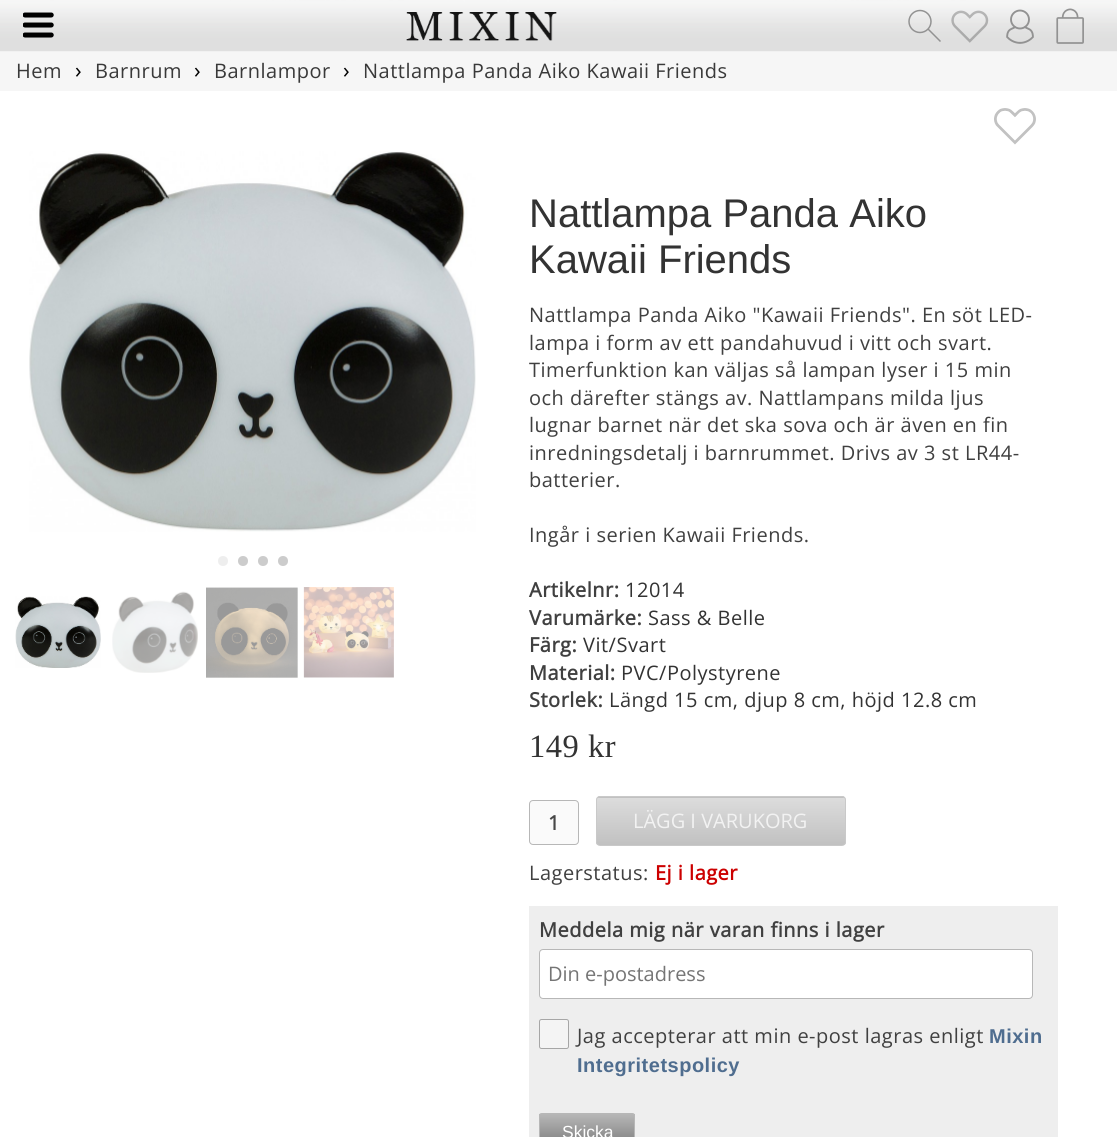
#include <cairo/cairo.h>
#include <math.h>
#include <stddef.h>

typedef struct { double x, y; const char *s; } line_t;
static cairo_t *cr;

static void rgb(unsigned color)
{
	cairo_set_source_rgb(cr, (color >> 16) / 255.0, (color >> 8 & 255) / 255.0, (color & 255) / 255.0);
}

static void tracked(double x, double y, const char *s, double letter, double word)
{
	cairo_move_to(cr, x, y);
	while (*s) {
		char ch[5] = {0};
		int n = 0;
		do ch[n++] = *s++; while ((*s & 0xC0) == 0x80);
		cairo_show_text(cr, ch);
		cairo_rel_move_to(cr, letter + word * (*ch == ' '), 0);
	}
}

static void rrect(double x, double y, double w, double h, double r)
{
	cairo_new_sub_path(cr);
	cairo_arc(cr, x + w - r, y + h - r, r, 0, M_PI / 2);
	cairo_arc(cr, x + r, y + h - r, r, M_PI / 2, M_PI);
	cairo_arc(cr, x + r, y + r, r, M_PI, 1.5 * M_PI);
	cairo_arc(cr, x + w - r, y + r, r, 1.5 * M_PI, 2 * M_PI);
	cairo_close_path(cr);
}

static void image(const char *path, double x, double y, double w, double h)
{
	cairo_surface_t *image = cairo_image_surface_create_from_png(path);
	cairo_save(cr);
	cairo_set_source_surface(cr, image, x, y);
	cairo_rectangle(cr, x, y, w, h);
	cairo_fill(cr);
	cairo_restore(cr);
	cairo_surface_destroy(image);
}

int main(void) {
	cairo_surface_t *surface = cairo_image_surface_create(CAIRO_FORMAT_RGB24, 1117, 1137);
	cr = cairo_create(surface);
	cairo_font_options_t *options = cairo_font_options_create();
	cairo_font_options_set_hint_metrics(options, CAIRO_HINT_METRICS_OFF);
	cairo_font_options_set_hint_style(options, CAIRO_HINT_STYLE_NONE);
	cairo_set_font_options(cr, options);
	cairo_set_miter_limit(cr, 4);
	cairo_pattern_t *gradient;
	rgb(0xffffff);
	cairo_paint(cr);
	image("img/1.png", 0, 0, 1117, 51);
	rgb(0xf6f6f6);
	cairo_rectangle(cr, 0, 51, 1117, 40);
	cairo_fill(cr);
	image("img/2.png", 0, 0, 1117, 52);
	image("img/3.png", 23, 12, 31, 26);
	image("img/4.png", 406, 12, 151, 29);
	cairo_arc(cr, 920, 21.5, 11, 0, 2 * M_PI);
	rgb(0x929292);
	cairo_set_line_width(cr, 1.5);
	cairo_stroke(cr);
	cairo_new_path(cr);
	cairo_move_to(cr, 928, 29);
	cairo_line_to(cr, 940.5, 41.5);
	cairo_stroke(cr);
	image("img/5.png", 951, 10, 38, 33);
	image("img/6.png", 1006, 9, 28, 35);
	image("img/7.png", 1056, 8, 28, 36);
	image("img/8.png", 29, 151, 447, 381);
	rgb(0xeeeeee);
	cairo_arc(cr, 223, 561, 5, 0, 2 * M_PI);
	cairo_fill(cr);
	rgb(0xcccccc);
	cairo_arc(cr, 243, 561, 5, 0, 2 * M_PI);
	cairo_fill(cr);
	cairo_arc(cr, 263, 561, 5, 0, 2 * M_PI);
	cairo_fill(cr);
	cairo_arc(cr, 283, 561, 5, 0, 2 * M_PI);
	cairo_fill(cr);
	image("img/9.png", 15, 596, 86, 72);
	image("img/10.png", 112, 591, 86, 82);
	image("img/11.png", 206, 587, 92, 91);
	image("img/12.png", 303, 587, 91, 91);
	image("img/13.png", 994, 108, 42, 37);
	rgb(0xfafafa);
	rrect(529.5, 800.5, 49, 44, 3.5);
	cairo_fill_preserve(cr);
	rgb(0xb7b7b7);
	cairo_set_line_width(cr, 1);
	cairo_stroke(cr);
	cairo_save(cr);
	rrect(596, 796, 250, 50, 4);
	cairo_clip(cr);
	gradient = cairo_pattern_create_linear(721, 750, 721, 798);
	cairo_pattern_add_color_stop_rgba(gradient, 0, 0.863, 0.863, 0.863, 1);
	cairo_pattern_add_color_stop_rgba(gradient, 1, 0.757, 0.757, 0.757, 1);
	cairo_set_source(cr, gradient);
	cairo_pattern_destroy(gradient);
	cairo_rectangle(cr, 596, 796, 250, 2);
	cairo_fill(cr);
	gradient = cairo_pattern_create_linear(721, 798, 721, 845);
	cairo_pattern_add_color_stop_rgba(gradient, 0, 0.863, 0.863, 0.863, 1);
	cairo_pattern_add_color_stop_rgba(gradient, 1, 0.757, 0.757, 0.757, 1);
	cairo_set_source(cr, gradient);
	cairo_pattern_destroy(gradient);
	cairo_rectangle(cr, 596, 798, 250, 47);
	cairo_fill(cr);
	cairo_restore(cr);
	rrect(596.5, 796.5, 249, 49, 3.5);
	rgb(0xc9c9c9);
	cairo_stroke(cr);
	rgb(0xeeeeee);
	cairo_rectangle(cr, 529, 906, 529, 231);
	cairo_fill(cr);
	rgb(0xffffff);
	rrect(539.5, 949.5, 493, 49, 3.5);
	cairo_fill_preserve(cr);
	rgb(0xb7b7b7);
	cairo_stroke(cr);
	rgb(0xf4f4f4);
	rrect(539.5, 1019.5, 29, 29, 2);
	cairo_fill_preserve(cr);
	rgb(0xa6a6a6);
	cairo_stroke(cr);
	gradient = cairo_pattern_create_linear(587, 1114, 587, 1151);
	cairo_pattern_add_color_stop_rgba(gradient, 0, 0.718, 0.718, 0.718, 1);
	cairo_pattern_add_color_stop_rgba(gradient, 1, 0.459, 0.459, 0.459, 1);
	cairo_set_source(cr, gradient);
	cairo_pattern_destroy(gradient);
	cairo_rectangle(cr, 539, 1114, 96, 23);
	cairo_fill(cr);
	rrect(539.5, 1113.5, 95, 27, 2);
	rgb(0xb7b7b7);
	cairo_stroke(cr);
	cairo_select_font_face(cr, "Open Sans", CAIRO_FONT_SLANT_NORMAL, CAIRO_FONT_WEIGHT_NORMAL);
	cairo_set_font_size(cr, 20);
	rgb(0x393939);
	tracked(16, 78, "Hem", 0.5, 0);
	cairo_set_font_size(cr, 22);
	rgb(0x000000);
	tracked(75, 78, "›", 0.5, 0);
	cairo_set_font_size(cr, 20);
	rgb(0x393939);
	tracked(95, 78, "Barnrum", 0.5, 0);
	cairo_set_font_size(cr, 22);
	rgb(0x000000);
	tracked(194, 78, "›", 0.5, 0);
	cairo_set_font_size(cr, 20);
	rgb(0x393939);
	tracked(214, 78, "Barnlampor", 0.5, 0);
	cairo_set_font_size(cr, 22);
	rgb(0x000000);
	tracked(343, 78, "›", 0.5, 0);
	cairo_set_font_size(cr, 20);
	rgb(0x393939);
	tracked(363, 78, "Nattlampa Panda Aiko Kawaii Friends", 0.5, 0);
	cairo_select_font_face(cr, "Liberation Sans", CAIRO_FONT_SLANT_NORMAL, CAIRO_FONT_WEIGHT_NORMAL);
	cairo_set_font_size(cr, 40);
	rgb(0x333333);
	cairo_move_to(cr, 529, 227);
	cairo_show_text(cr, "Nattlampa Panda Aiko");
	cairo_move_to(cr, 529, 273);
	cairo_show_text(cr, "Kawaii Friends");
	cairo_select_font_face(cr, "Open Sans", CAIRO_FONT_SLANT_NORMAL, CAIRO_FONT_WEIGHT_NORMAL);
	cairo_set_font_size(cr, 20);
	rgb(0x404040);
	{
		static const line_t items[] = {
			{529, 322, "Nattlampa Panda Aiko \"Kawaii Friends\". En söt LED-"},
			{529, 350, "lampa i form av ett pandahuvud i vitt och svart."},
			{529, 377, "Timerfunktion kan väljas så lampan lyser i 15 min"},
			{529, 405, "och därefter stängs av. Nattlampans milda ljus"},
			{529, 432, "lugnar barnet när det ska sova och är även en fin"},
			{529, 460, "inredningsdetalj i barnrummet. Drivs av 3 st LR44-"},
			{529, 487, "batterier."},
			{529, 542, "Ingår i serien Kawaii Friends."},
		};
		for (size_t i = 0; i < sizeof items / sizeof *items; i++) {
			tracked(items[i].x, items[i].y, items[i].s, 0.5, 0);
		}
	}
	cairo_select_font_face(cr, "Open Sans", CAIRO_FONT_SLANT_NORMAL, CAIRO_FONT_WEIGHT_BOLD);
	tracked(529, 597, "Artikelnr:", 0.5, 0);
	cairo_select_font_face(cr, "Open Sans", CAIRO_FONT_SLANT_NORMAL, CAIRO_FONT_WEIGHT_NORMAL);
	rgb(0x333333);
	tracked(625, 597, "12014", 0.5, 0);
	cairo_select_font_face(cr, "Open Sans", CAIRO_FONT_SLANT_NORMAL, CAIRO_FONT_WEIGHT_BOLD);
	rgb(0x404040);
	tracked(529, 625, "Varumärke:", 0.5, 0);
	cairo_select_font_face(cr, "Open Sans", CAIRO_FONT_SLANT_NORMAL, CAIRO_FONT_WEIGHT_NORMAL);
	rgb(0x333333);
	tracked(648, 625, "Sass & Belle", 0.5, 0);
	cairo_select_font_face(cr, "Open Sans", CAIRO_FONT_SLANT_NORMAL, CAIRO_FONT_WEIGHT_BOLD);
	rgb(0x404040);
	tracked(529, 652, "Färg:", 0.5, 0);
	cairo_select_font_face(cr, "Open Sans", CAIRO_FONT_SLANT_NORMAL, CAIRO_FONT_WEIGHT_NORMAL);
	rgb(0x333333);
	tracked(583, 652, "Vit/Svart", 0.5, 0);
	cairo_select_font_face(cr, "Open Sans", CAIRO_FONT_SLANT_NORMAL, CAIRO_FONT_WEIGHT_BOLD);
	rgb(0x404040);
	tracked(529, 680, "Material:", 0.5, 0);
	cairo_select_font_face(cr, "Open Sans", CAIRO_FONT_SLANT_NORMAL, CAIRO_FONT_WEIGHT_NORMAL);
	rgb(0x333333);
	tracked(621, 680, "PVC/Polystyrene", 0.5, 0);
	cairo_select_font_face(cr, "Open Sans", CAIRO_FONT_SLANT_NORMAL, CAIRO_FONT_WEIGHT_BOLD);
	rgb(0x404040);
	tracked(529, 707, "Storlek:", 0.5, 0);
	cairo_select_font_face(cr, "Open Sans", CAIRO_FONT_SLANT_NORMAL, CAIRO_FONT_WEIGHT_NORMAL);
	rgb(0x333333);
	tracked(609, 707, "Längd 15 cm, djup 8 cm, höjd 12.8 cm", 0.5, 0);
	cairo_select_font_face(cr, "Liberation Serif", CAIRO_FONT_SLANT_NORMAL, CAIRO_FONT_WEIGHT_NORMAL);
	cairo_set_font_size(cr, 32.5);
	tracked(529, 757, "149 kr", 0.5, 0);
	cairo_select_font_face(cr, "Open Sans", CAIRO_FONT_SLANT_NORMAL, CAIRO_FONT_WEIGHT_BOLD);
	cairo_set_font_size(cr, 20);
	rgb(0x484848);
	cairo_move_to(cr, 548, 830);
	cairo_show_text(cr, "1");
	cairo_select_font_face(cr, "Open Sans", CAIRO_FONT_SLANT_NORMAL, CAIRO_FONT_WEIGHT_NORMAL);
	rgb(0xf2f2f2);
	cairo_move_to(cr, 633, 828);
	cairo_show_text(cr, "LÄGG I VARUKORG");
	rgb(0x404040);
	tracked(529, 880, "Lagerstatus:", 0.5, 0);
	cairo_select_font_face(cr, "Open Sans", CAIRO_FONT_SLANT_NORMAL, CAIRO_FONT_WEIGHT_BOLD);
	rgb(0xcc0000);
	tracked(655, 880, "Ej i lager", 0.5, 0);
	rgb(0x404040);
	tracked(539, 937, "Meddela mig när varan finns i lager", 0.5, 0);
	cairo_select_font_face(cr, "Open Sans", CAIRO_FONT_SLANT_NORMAL, CAIRO_FONT_WEIGHT_NORMAL);
	rgb(0x757575);
	cairo_move_to(cr, 548, 981);
	cairo_show_text(cr, "Din e-postadress");
	rgb(0x404040);
	tracked(577, 1043, "Jag accepterar att min e-post lagras enligt", 0.5, 0);
	cairo_select_font_face(cr, "Liberation Sans", CAIRO_FONT_SLANT_NORMAL, CAIRO_FONT_WEIGHT_BOLD);
	rgb(0x4f6d8f);
	tracked(989, 1043, "Mixin", 0.5, 0);
	tracked(577, 1072, "Integritetspolicy", 0.5, 0);
	cairo_select_font_face(cr, "Liberation Sans", CAIRO_FONT_SLANT_NORMAL, CAIRO_FONT_WEIGHT_NORMAL);
	cairo_set_font_size(cr, 17.5);
	rgb(0xffffff);
	cairo_move_to(cr, 562, 1138);
	cairo_show_text(cr, "Skicka");
	cairo_surface_write_to_png(surface, "page.png");
	cairo_font_options_destroy(options);
	cairo_destroy(cr);
	cairo_surface_destroy(surface);
	return 0;
}
